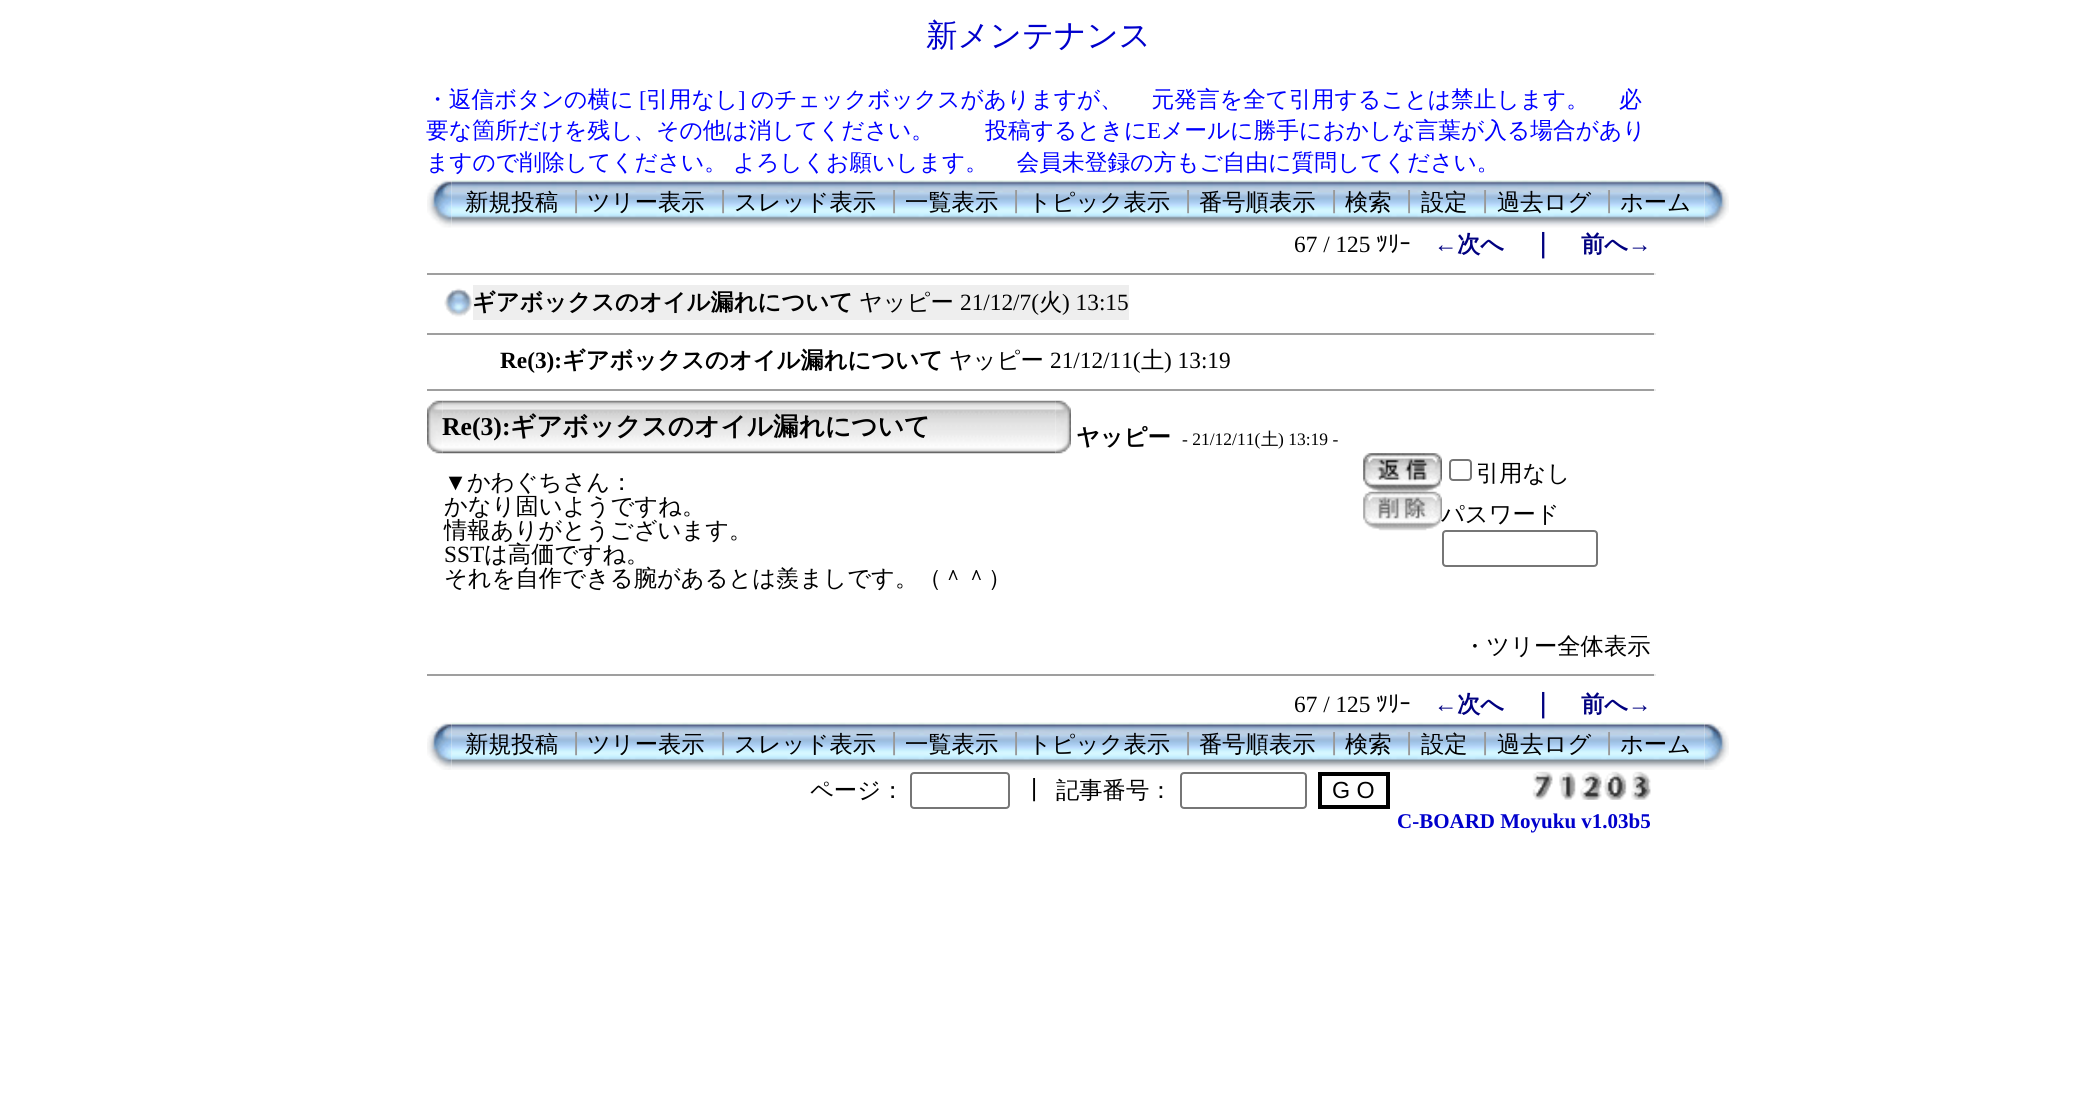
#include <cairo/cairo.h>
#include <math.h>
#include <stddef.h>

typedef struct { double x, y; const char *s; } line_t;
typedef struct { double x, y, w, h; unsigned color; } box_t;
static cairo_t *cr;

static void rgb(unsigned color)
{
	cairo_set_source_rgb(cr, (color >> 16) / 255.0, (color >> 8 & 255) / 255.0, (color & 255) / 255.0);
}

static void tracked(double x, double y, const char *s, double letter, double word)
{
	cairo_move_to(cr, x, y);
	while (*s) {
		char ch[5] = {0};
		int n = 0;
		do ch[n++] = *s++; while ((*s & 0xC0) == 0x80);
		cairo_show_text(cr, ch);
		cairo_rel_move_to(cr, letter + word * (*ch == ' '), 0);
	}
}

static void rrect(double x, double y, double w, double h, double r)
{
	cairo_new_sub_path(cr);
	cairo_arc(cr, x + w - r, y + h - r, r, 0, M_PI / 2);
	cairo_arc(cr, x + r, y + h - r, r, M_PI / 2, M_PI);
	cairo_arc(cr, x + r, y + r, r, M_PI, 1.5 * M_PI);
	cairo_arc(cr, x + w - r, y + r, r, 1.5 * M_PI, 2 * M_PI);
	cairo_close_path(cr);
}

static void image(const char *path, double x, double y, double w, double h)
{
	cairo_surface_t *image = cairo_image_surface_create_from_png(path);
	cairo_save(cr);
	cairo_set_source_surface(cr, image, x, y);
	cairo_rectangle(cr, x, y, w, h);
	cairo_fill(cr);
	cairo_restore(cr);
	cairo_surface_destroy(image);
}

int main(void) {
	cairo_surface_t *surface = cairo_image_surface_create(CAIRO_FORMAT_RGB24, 2077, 1096);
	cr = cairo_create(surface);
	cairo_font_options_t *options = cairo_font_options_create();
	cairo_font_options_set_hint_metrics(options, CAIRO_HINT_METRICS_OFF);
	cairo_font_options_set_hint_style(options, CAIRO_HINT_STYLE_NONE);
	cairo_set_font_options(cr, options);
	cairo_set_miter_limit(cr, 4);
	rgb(0xffffff);
	cairo_paint(cr);
	image("img/2.png", 451, 180, 1254, 48);
	image("img/1.png", 427, 180, 25, 48);
	image("img/3.png", 1704, 180, 25, 48);
	rgb(0x9f9f9f);
	cairo_rectangle(cr, 427, 273, 1229, 2);
	cairo_fill(cr);
	rgb(0xeeeeee);
	cairo_rectangle(cr, 1654, 273, 2, 2);
	cairo_fill(cr);
	image("img/4.png", 444, 288, 29, 29);
	{
		static const box_t items[] = {
			{473, 285, 656, 35, 0xeeeeee},
			{427, 333, 1229, 2, 0x9f9f9f},
			{1654, 333, 2, 2, 0xeeeeee},
			{427, 389, 1229, 2, 0x9f9f9f},
			{1654, 389, 2, 2, 0xeeeeee},
		};
		for (size_t i = 0; i < sizeof items / sizeof *items; i++) {
			rgb(items[i].color);
			cairo_rectangle(cr, items[i].x, items[i].y, items[i].w, items[i].h);
			cairo_fill(cr);
		}
	}
	image("img/6.png", 442, 400, 614, 54);
	image("img/5.png", 427, 400, 16, 54);
	image("img/7.png", 1055, 400, 16, 54);
	image("img/8.png", 1363, 453, 79, 39);
	rrect(1450, 460, 21, 20, 3);
	rgb(0x767676);
	cairo_stroke(cr);
	image("img/9.png", 1363, 491, 79, 40);
	rrect(1443, 531, 154, 35, 3);
	cairo_stroke(cr);
	rgb(0x9f9f9f);
	cairo_rectangle(cr, 427, 674, 1229, 2);
	cairo_fill(cr);
	rgb(0xeeeeee);
	cairo_rectangle(cr, 1654, 674, 2, 2);
	cairo_fill(cr);
	image("img/11.png", 451, 722, 1254, 48);
	image("img/10.png", 427, 722, 25, 48);
	image("img/12.png", 1704, 722, 25, 48);
	rrect(911, 773, 98, 35, 3);
	rgb(0x767676);
	cairo_stroke(cr);
	rrect(1181, 773, 125, 35, 3);
	cairo_stroke(cr);
	cairo_rectangle(cr, 1320, 774, 68, 33);
	rgb(0x000000);
	cairo_set_line_width(cr, 4);
	cairo_stroke(cr);
	image("img/13.png", 1532, 771, 21, 29);
	image("img/14.png", 1559, 771, 17, 29);
	image("img/15.png", 1580, 771, 22, 29);
	image("img/16.png", 1603, 771, 24, 29);
	image("img/17.png", 1631, 771, 20, 29);
	cairo_select_font_face(cr, "WenQuanYi Zen Hei Medium", CAIRO_FONT_SLANT_NORMAL, CAIRO_FONT_WEIGHT_NORMAL);
	cairo_set_font_size(cr, 31.5);
	rgb(0x0000cc);
	cairo_move_to(cr, 926, 46);
	cairo_show_text(cr, "新メンテナンス");
	cairo_set_font_size(cr, 22.75);
	rgb(0x0000ff);
	cairo_move_to(cr, 426, 107);
	cairo_show_text(cr, "・返信ボタンの横に");
	cairo_select_font_face(cr, "Liberation Serif", CAIRO_FONT_SLANT_NORMAL, CAIRO_FONT_WEIGHT_NORMAL);
	cairo_move_to(cr, 639, 107);
	cairo_show_text(cr, "[");
	cairo_select_font_face(cr, "WenQuanYi Zen Hei Medium", CAIRO_FONT_SLANT_NORMAL, CAIRO_FONT_WEIGHT_NORMAL);
	cairo_move_to(cr, 646, 107);
	cairo_show_text(cr, "引用なし");
	cairo_select_font_face(cr, "Liberation Serif", CAIRO_FONT_SLANT_NORMAL, CAIRO_FONT_WEIGHT_NORMAL);
	cairo_move_to(cr, 738, 107);
	cairo_show_text(cr, "]");
	cairo_select_font_face(cr, "WenQuanYi Zen Hei Medium", CAIRO_FONT_SLANT_NORMAL, CAIRO_FONT_WEIGHT_NORMAL);
	tracked(751, 107, "のチェックボックスがありますが、 　元発言を全て引用することは禁止します。", 0, -1);
	cairo_move_to(cr, 1619, 107);
	cairo_show_text(cr, "必");
	tracked(426, 138, "要な箇所だけを残し、その他は消してください。 　　投稿するときに", 0, -1);
	cairo_select_font_face(cr, "Liberation Serif", CAIRO_FONT_SLANT_NORMAL, CAIRO_FONT_WEIGHT_NORMAL);
	cairo_move_to(cr, 1147, 138);
	cairo_show_text(cr, "E");
	cairo_select_font_face(cr, "WenQuanYi Zen Hei Medium", CAIRO_FONT_SLANT_NORMAL, CAIRO_FONT_WEIGHT_NORMAL);
	cairo_move_to(cr, 1161, 138);
	cairo_show_text(cr, "メールに勝手におかしな言葉が入る場合があり");
	tracked(426, 170, "ますので削除してください。 よろしくお願いします。 　会員未登録の方もご自由に質問してください。", 0, -1);
	cairo_set_font_size(cr, 23.3);
	rgb(0x000000);
	cairo_move_to(cr, 465, 210);
	cairo_show_text(cr, "新規投稿");
	rgb(0x999999);
	cairo_move_to(cr, 564, 210);
	cairo_show_text(cr, "┃");
	rgb(0x000000);
	cairo_move_to(cr, 587, 210);
	cairo_show_text(cr, "ツリー表示");
	rgb(0x999999);
	cairo_move_to(cr, 711, 210);
	cairo_show_text(cr, "┃");
	rgb(0x000000);
	cairo_move_to(cr, 734, 210);
	cairo_show_text(cr, "スレッド表示");
	rgb(0x999999);
	cairo_move_to(cr, 882, 210);
	cairo_show_text(cr, "┃");
	rgb(0x000000);
	cairo_move_to(cr, 905, 210);
	cairo_show_text(cr, "一覧表示");
	rgb(0x999999);
	cairo_move_to(cr, 1004, 210);
	cairo_show_text(cr, "┃");
	rgb(0x000000);
	cairo_move_to(cr, 1028, 210);
	cairo_show_text(cr, "トピック表示");
	rgb(0x999999);
	cairo_move_to(cr, 1176, 210);
	cairo_show_text(cr, "┃");
	rgb(0x000000);
	cairo_move_to(cr, 1199, 210);
	cairo_show_text(cr, "番号順表示");
	rgb(0x999999);
	cairo_move_to(cr, 1322, 210);
	cairo_show_text(cr, "┃");
	rgb(0x000000);
	cairo_move_to(cr, 1345, 210);
	cairo_show_text(cr, "検索");
	rgb(0x999999);
	cairo_move_to(cr, 1397, 210);
	cairo_show_text(cr, "┃");
	rgb(0x000000);
	cairo_move_to(cr, 1421, 210);
	cairo_show_text(cr, "設定");
	rgb(0x999999);
	cairo_move_to(cr, 1473, 210);
	cairo_show_text(cr, "┃");
	rgb(0x000000);
	cairo_move_to(cr, 1497, 210);
	cairo_show_text(cr, "過去ログ");
	rgb(0x999999);
	cairo_move_to(cr, 1597, 210);
	cairo_show_text(cr, "┃");
	rgb(0x000000);
	cairo_move_to(cr, 1620, 210);
	cairo_show_text(cr, "ホーム");
	cairo_select_font_face(cr, "Liberation Serif", CAIRO_FONT_SLANT_NORMAL, CAIRO_FONT_WEIGHT_NORMAL);
	cairo_move_to(cr, 1294, 252);
	cairo_show_text(cr, "67 / 125");
	cairo_select_font_face(cr, "IPAPGothic", CAIRO_FONT_SLANT_NORMAL, CAIRO_FONT_WEIGHT_NORMAL);
	cairo_move_to(cr, 1376, 252);
	cairo_show_text(cr, "ﾂﾘｰ");
	cairo_select_font_face(cr, "Liberation Serif", CAIRO_FONT_SLANT_NORMAL, CAIRO_FONT_WEIGHT_BOLD);
	rgb(0x000080);
	cairo_move_to(cr, 1434, 252);
	cairo_show_text(cr, "←");
	cairo_select_font_face(cr, "WenQuanYi Zen Hei", CAIRO_FONT_SLANT_NORMAL, CAIRO_FONT_WEIGHT_BOLD);
	cairo_move_to(cr, 1457, 252);
	cairo_show_text(cr, "次へ");
	cairo_set_font_size(cr, 25.7);
	cairo_move_to(cr, 1530, 252);
	cairo_show_text(cr, "｜");
	cairo_set_font_size(cr, 23.3);
	cairo_move_to(cr, 1581, 252);
	cairo_show_text(cr, "前へ");
	cairo_select_font_face(cr, "Liberation Serif", CAIRO_FONT_SLANT_NORMAL, CAIRO_FONT_WEIGHT_BOLD);
	cairo_move_to(cr, 1628, 252);
	cairo_show_text(cr, "→");
	cairo_select_font_face(cr, "WenQuanYi Zen Hei", CAIRO_FONT_SLANT_NORMAL, CAIRO_FONT_WEIGHT_BOLD);
	rgb(0x000000);
	cairo_move_to(cr, 472, 310);
	cairo_show_text(cr, "ギアボックスのオイル漏れについて");
	cairo_select_font_face(cr, "WenQuanYi Zen Hei Medium", CAIRO_FONT_SLANT_NORMAL, CAIRO_FONT_WEIGHT_NORMAL);
	cairo_move_to(cr, 859, 310);
	cairo_show_text(cr, "ヤッピー");
	cairo_select_font_face(cr, "Liberation Serif", CAIRO_FONT_SLANT_NORMAL, CAIRO_FONT_WEIGHT_NORMAL);
	cairo_move_to(cr, 960, 310);
	cairo_show_text(cr, "21/12/7(");
	cairo_select_font_face(cr, "WenQuanYi Zen Hei Medium", CAIRO_FONT_SLANT_NORMAL, CAIRO_FONT_WEIGHT_NORMAL);
	cairo_move_to(cr, 1039, 310);
	cairo_show_text(cr, "火");
	cairo_select_font_face(cr, "Liberation Serif", CAIRO_FONT_SLANT_NORMAL, CAIRO_FONT_WEIGHT_NORMAL);
	cairo_move_to(cr, 1062, 310);
	cairo_show_text(cr, ") 13:15");
	cairo_select_font_face(cr, "Liberation Serif", CAIRO_FONT_SLANT_NORMAL, CAIRO_FONT_WEIGHT_BOLD);
	cairo_move_to(cr, 500, 368);
	cairo_show_text(cr, "Re(3):");
	cairo_select_font_face(cr, "WenQuanYi Zen Hei", CAIRO_FONT_SLANT_NORMAL, CAIRO_FONT_WEIGHT_BOLD);
	cairo_move_to(cr, 562, 368);
	cairo_show_text(cr, "ギアボックスのオイル漏れについて");
	cairo_select_font_face(cr, "WenQuanYi Zen Hei Medium", CAIRO_FONT_SLANT_NORMAL, CAIRO_FONT_WEIGHT_NORMAL);
	cairo_move_to(cr, 949, 368);
	cairo_show_text(cr, "ヤッピー");
	cairo_select_font_face(cr, "Liberation Serif", CAIRO_FONT_SLANT_NORMAL, CAIRO_FONT_WEIGHT_NORMAL);
	cairo_move_to(cr, 1050, 368);
	cairo_show_text(cr, "21/12/11(");
	cairo_select_font_face(cr, "WenQuanYi Zen Hei Medium", CAIRO_FONT_SLANT_NORMAL, CAIRO_FONT_WEIGHT_NORMAL);
	cairo_move_to(cr, 1141, 368);
	cairo_show_text(cr, "土");
	cairo_select_font_face(cr, "Liberation Serif", CAIRO_FONT_SLANT_NORMAL, CAIRO_FONT_WEIGHT_NORMAL);
	cairo_move_to(cr, 1164, 368);
	cairo_show_text(cr, ") 13:19");
	cairo_select_font_face(cr, "Liberation Serif", CAIRO_FONT_SLANT_NORMAL, CAIRO_FONT_WEIGHT_BOLD);
	cairo_set_font_size(cr, 25.7);
	cairo_move_to(cr, 442, 435);
	cairo_show_text(cr, "Re(3):");
	cairo_select_font_face(cr, "WenQuanYi Zen Hei", CAIRO_FONT_SLANT_NORMAL, CAIRO_FONT_WEIGHT_BOLD);
	cairo_move_to(cr, 510, 435);
	cairo_show_text(cr, "ギアボックスのオイル漏れについて");
	cairo_set_font_size(cr, 23.3);
	cairo_move_to(cr, 1076, 445);
	cairo_show_text(cr, "ヤッピー");
	cairo_select_font_face(cr, "Liberation Serif", CAIRO_FONT_SLANT_NORMAL, CAIRO_FONT_WEIGHT_NORMAL);
	cairo_set_font_size(cr, 17.5);
	cairo_move_to(cr, 1182, 445);
	cairo_show_text(cr, "- 21/12/11(");
	cairo_select_font_face(cr, "WenQuanYi Zen Hei Medium", CAIRO_FONT_SLANT_NORMAL, CAIRO_FONT_WEIGHT_NORMAL);
	cairo_move_to(cr, 1261, 445);
	cairo_show_text(cr, "土");
	cairo_select_font_face(cr, "Liberation Serif", CAIRO_FONT_SLANT_NORMAL, CAIRO_FONT_WEIGHT_NORMAL);
	cairo_move_to(cr, 1278, 445);
	cairo_show_text(cr, ") 13:19 -");
	cairo_set_font_size(cr, 23.3);
	cairo_move_to(cr, 444, 490);
	cairo_show_text(cr, "▼");
	cairo_select_font_face(cr, "WenQuanYi Zen Hei Medium", CAIRO_FONT_SLANT_NORMAL, CAIRO_FONT_WEIGHT_NORMAL);
	{
		static const line_t items[] = {
			{467, 490, "かわぐちさん："},
			{444, 514, "かなり固いようですね。"},
			{444, 538, "情報ありがとうございます。"},
		};
		for (size_t i = 0; i < sizeof items / sizeof *items; i++) {
			cairo_move_to(cr, items[i].x, items[i].y);
			cairo_show_text(cr, items[i].s);
		}
	}
	cairo_select_font_face(cr, "Liberation Serif", CAIRO_FONT_SLANT_NORMAL, CAIRO_FONT_WEIGHT_NORMAL);
	cairo_move_to(cr, 444, 562);
	cairo_show_text(cr, "SST");
	cairo_select_font_face(cr, "WenQuanYi Zen Hei Medium", CAIRO_FONT_SLANT_NORMAL, CAIRO_FONT_WEIGHT_NORMAL);
	{
		static const line_t items[] = {
			{484, 562, "は高価ですね。"},
			{444, 586, "それを自作できる腕があるとは羨ましです。（＾＾）"},
			{1476, 481, "引用なし"},
			{1441, 522, "パスワード"},
			{1463, 654, "・ツリー全体表示"},
		};
		for (size_t i = 0; i < sizeof items / sizeof *items; i++) {
			cairo_move_to(cr, items[i].x, items[i].y);
			cairo_show_text(cr, items[i].s);
		}
	}
	cairo_select_font_face(cr, "Liberation Serif", CAIRO_FONT_SLANT_NORMAL, CAIRO_FONT_WEIGHT_NORMAL);
	cairo_move_to(cr, 1294, 712);
	cairo_show_text(cr, "67 / 125");
	cairo_select_font_face(cr, "IPAPGothic", CAIRO_FONT_SLANT_NORMAL, CAIRO_FONT_WEIGHT_NORMAL);
	cairo_move_to(cr, 1376, 712);
	cairo_show_text(cr, "ﾂﾘｰ");
	cairo_select_font_face(cr, "Liberation Serif", CAIRO_FONT_SLANT_NORMAL, CAIRO_FONT_WEIGHT_BOLD);
	rgb(0x000080);
	cairo_move_to(cr, 1434, 712);
	cairo_show_text(cr, "←");
	cairo_select_font_face(cr, "WenQuanYi Zen Hei", CAIRO_FONT_SLANT_NORMAL, CAIRO_FONT_WEIGHT_BOLD);
	cairo_move_to(cr, 1457, 712);
	cairo_show_text(cr, "次へ");
	cairo_set_font_size(cr, 25.7);
	cairo_move_to(cr, 1530, 712);
	cairo_show_text(cr, "｜");
	cairo_set_font_size(cr, 23.3);
	cairo_move_to(cr, 1581, 712);
	cairo_show_text(cr, "前へ");
	cairo_select_font_face(cr, "Liberation Serif", CAIRO_FONT_SLANT_NORMAL, CAIRO_FONT_WEIGHT_BOLD);
	cairo_move_to(cr, 1628, 712);
	cairo_show_text(cr, "→");
	cairo_select_font_face(cr, "WenQuanYi Zen Hei Medium", CAIRO_FONT_SLANT_NORMAL, CAIRO_FONT_WEIGHT_NORMAL);
	rgb(0x000000);
	cairo_move_to(cr, 465, 752);
	cairo_show_text(cr, "新規投稿");
	rgb(0x999999);
	cairo_move_to(cr, 564, 752);
	cairo_show_text(cr, "┃");
	rgb(0x000000);
	cairo_move_to(cr, 587, 752);
	cairo_show_text(cr, "ツリー表示");
	rgb(0x999999);
	cairo_move_to(cr, 711, 752);
	cairo_show_text(cr, "┃");
	rgb(0x000000);
	cairo_move_to(cr, 734, 752);
	cairo_show_text(cr, "スレッド表示");
	rgb(0x999999);
	cairo_move_to(cr, 882, 752);
	cairo_show_text(cr, "┃");
	rgb(0x000000);
	cairo_move_to(cr, 905, 752);
	cairo_show_text(cr, "一覧表示");
	rgb(0x999999);
	cairo_move_to(cr, 1004, 752);
	cairo_show_text(cr, "┃");
	rgb(0x000000);
	cairo_move_to(cr, 1028, 752);
	cairo_show_text(cr, "トピック表示");
	rgb(0x999999);
	cairo_move_to(cr, 1176, 752);
	cairo_show_text(cr, "┃");
	rgb(0x000000);
	cairo_move_to(cr, 1199, 752);
	cairo_show_text(cr, "番号順表示");
	rgb(0x999999);
	cairo_move_to(cr, 1322, 752);
	cairo_show_text(cr, "┃");
	rgb(0x000000);
	cairo_move_to(cr, 1345, 752);
	cairo_show_text(cr, "検索");
	rgb(0x999999);
	cairo_move_to(cr, 1397, 752);
	cairo_show_text(cr, "┃");
	rgb(0x000000);
	cairo_move_to(cr, 1421, 752);
	cairo_show_text(cr, "設定");
	rgb(0x999999);
	cairo_move_to(cr, 1473, 752);
	cairo_show_text(cr, "┃");
	rgb(0x000000);
	cairo_move_to(cr, 1497, 752);
	cairo_show_text(cr, "過去ログ");
	rgb(0x999999);
	cairo_move_to(cr, 1597, 752);
	cairo_show_text(cr, "┃");
	rgb(0x000000);
	{
		static const line_t items[] = {
			{1620, 752, "ホーム"},
			{810, 798, "ページ："},
			{1022, 798, "┃"},
			{1056, 798, "記事番号："},
		};
		for (size_t i = 0; i < sizeof items / sizeof *items; i++) {
			cairo_move_to(cr, items[i].x, items[i].y);
			cairo_show_text(cr, items[i].s);
		}
	}
	cairo_select_font_face(cr, "Liberation Sans", CAIRO_FONT_SLANT_NORMAL, CAIRO_FONT_WEIGHT_NORMAL);
	cairo_move_to(cr, 1332, 798);
	cairo_show_text(cr, "G O");
	cairo_select_font_face(cr, "Liberation Serif", CAIRO_FONT_SLANT_NORMAL, CAIRO_FONT_WEIGHT_BOLD);
	cairo_set_font_size(cr, 21);
	rgb(0x0000cc);
	cairo_move_to(cr, 1397, 828);
	cairo_show_text(cr, "C-BOARD Moyuku v1.03b5");
	cairo_surface_write_to_png(surface, "page.png");
	cairo_font_options_destroy(options);
	cairo_destroy(cr);
	cairo_surface_destroy(surface);
	return 0;
}
